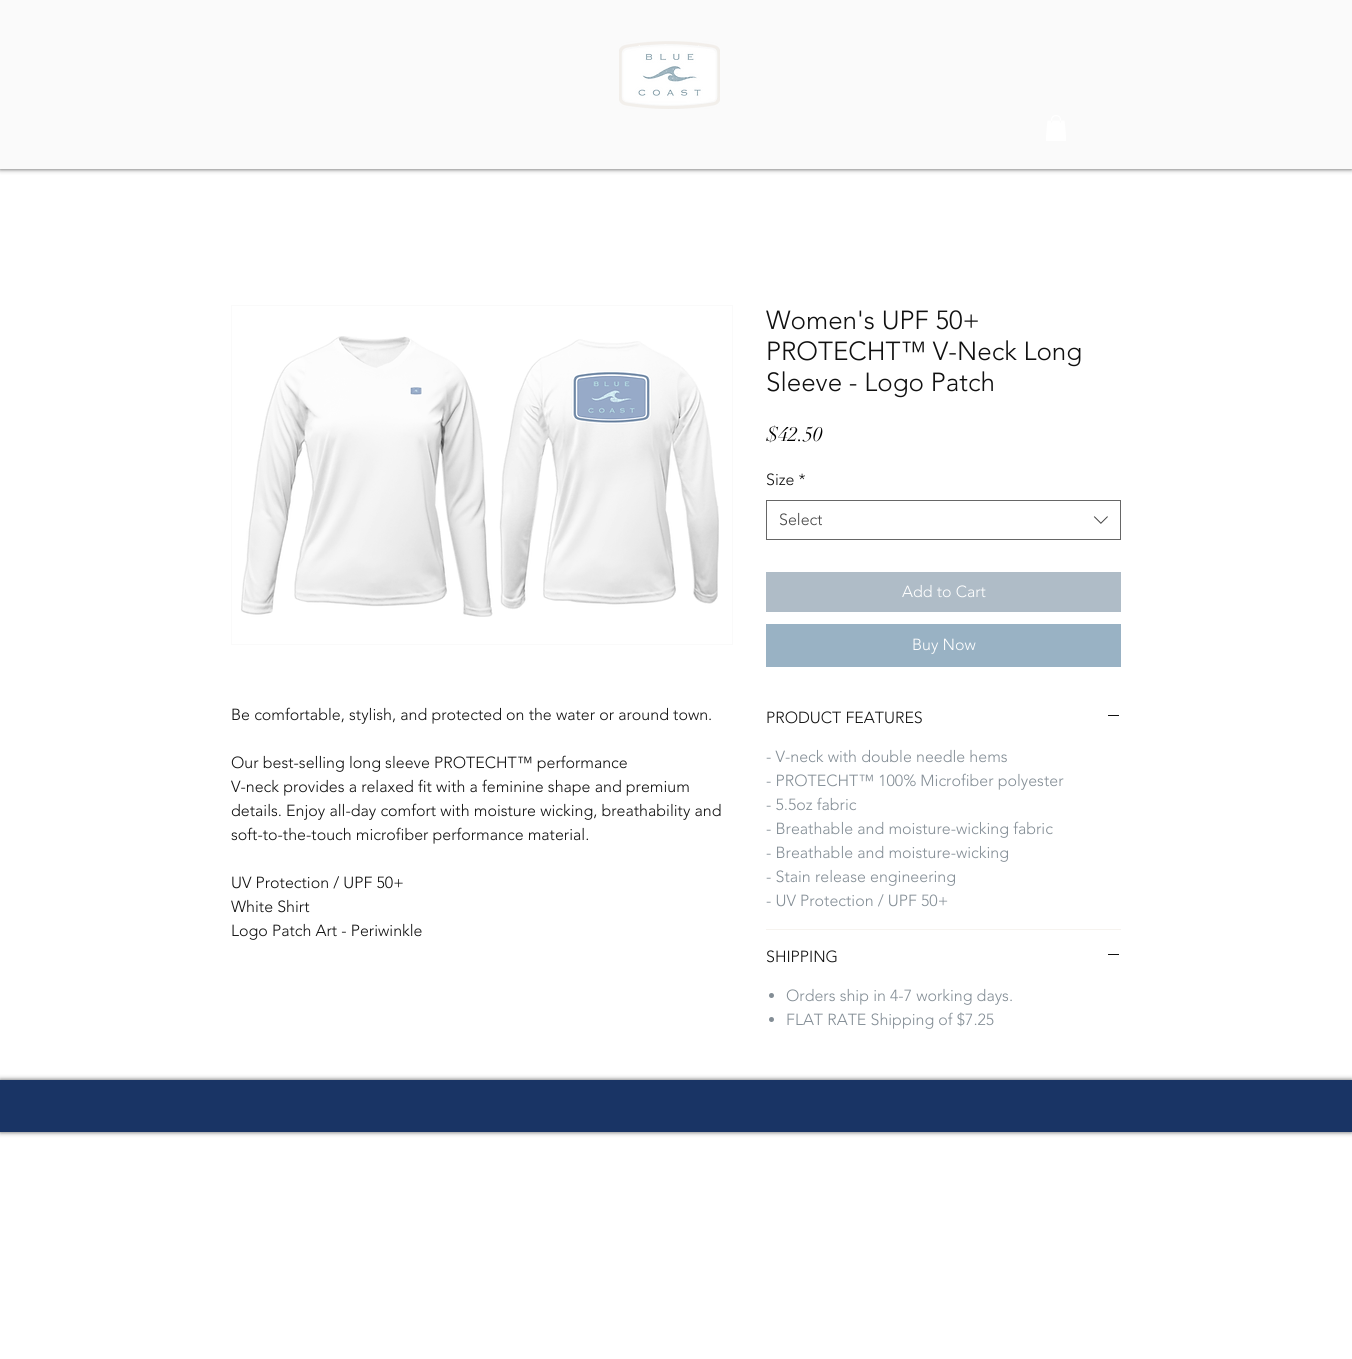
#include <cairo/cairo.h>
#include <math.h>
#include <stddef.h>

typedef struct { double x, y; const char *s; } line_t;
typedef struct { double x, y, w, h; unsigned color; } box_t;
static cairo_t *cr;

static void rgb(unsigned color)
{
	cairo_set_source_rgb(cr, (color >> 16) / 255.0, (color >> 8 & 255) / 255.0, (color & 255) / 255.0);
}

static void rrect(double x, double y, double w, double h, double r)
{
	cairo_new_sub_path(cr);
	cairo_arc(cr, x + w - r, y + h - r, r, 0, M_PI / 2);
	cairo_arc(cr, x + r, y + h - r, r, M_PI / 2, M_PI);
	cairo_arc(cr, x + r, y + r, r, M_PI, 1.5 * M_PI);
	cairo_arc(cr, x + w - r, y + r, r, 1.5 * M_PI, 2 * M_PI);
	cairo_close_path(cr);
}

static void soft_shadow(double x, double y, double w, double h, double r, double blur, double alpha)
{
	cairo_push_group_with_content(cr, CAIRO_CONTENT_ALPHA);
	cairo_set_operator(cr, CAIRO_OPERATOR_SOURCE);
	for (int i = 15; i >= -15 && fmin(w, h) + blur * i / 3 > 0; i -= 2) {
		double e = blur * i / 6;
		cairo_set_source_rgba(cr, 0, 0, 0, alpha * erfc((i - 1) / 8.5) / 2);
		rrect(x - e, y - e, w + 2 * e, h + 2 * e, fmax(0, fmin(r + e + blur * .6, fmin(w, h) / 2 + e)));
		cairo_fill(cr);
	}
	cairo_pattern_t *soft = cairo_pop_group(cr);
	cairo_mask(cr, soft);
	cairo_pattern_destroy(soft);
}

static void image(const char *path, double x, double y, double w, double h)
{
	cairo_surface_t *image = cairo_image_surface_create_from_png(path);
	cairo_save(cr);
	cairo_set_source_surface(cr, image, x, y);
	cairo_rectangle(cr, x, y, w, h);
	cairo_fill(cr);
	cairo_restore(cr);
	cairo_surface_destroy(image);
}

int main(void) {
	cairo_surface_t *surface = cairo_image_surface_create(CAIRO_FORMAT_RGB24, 1352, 1359);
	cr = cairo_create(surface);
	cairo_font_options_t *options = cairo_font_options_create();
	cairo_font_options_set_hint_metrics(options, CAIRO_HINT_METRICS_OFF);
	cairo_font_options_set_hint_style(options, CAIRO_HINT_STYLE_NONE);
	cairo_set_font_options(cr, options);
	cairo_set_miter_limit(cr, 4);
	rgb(0xffffff);
	cairo_paint(cr);
	rgb(0x000000);
	soft_shadow(0, 0, 1352, 169, 0, 2.5, 0.7);
	rgb(0xfafafa);
	cairo_rectangle(cr, 0, 0, 1352, 169);
	cairo_fill(cr);
	image("img/1.png", 619, 41, 101, 68);
	image("img/2.png", 1046, 115, 20, 26);
	cairo_rectangle(cr, 231.5, 305.5, 501, 339);
	cairo_set_line_width(cr, 1);
	cairo_stroke(cr);
	image("img/3.png", 241, 336, 478, 281);
	cairo_rectangle(cr, 766.5, 500.5, 354, 39);
	rgb(0x666666);
	cairo_stroke(cr);
	image("img/4.png", 1093, 516, 15, 8);
	{
		static const box_t items[] = {
			{766, 572, 355, 40, 0xafbcc7},
			{766, 624, 355, 43, 0x99b2c4},
			{766, 929, 355, 1, 0xf6f3ef},
			{1108, 715, 11, 1, 0x111111},
			{1108, 954, 11, 1, 0x111111},
		};
		for (size_t i = 0; i < sizeof items / sizeof *items; i++) {
			rgb(items[i].color);
			cairo_rectangle(cr, items[i].x, items[i].y, items[i].w, items[i].h);
			cairo_fill(cr);
		}
	}
	rgb(0x838d95);
	cairo_arc(cr, 771.5, 995.5, 2.5, 0, 2 * M_PI);
	cairo_fill(cr);
	cairo_arc(cr, 771.5, 1019.5, 2.5, 0, 2 * M_PI);
	cairo_fill(cr);
	rgb(0x000000);
	soft_shadow(0, 1080, 1352, 52, 0, 2.5, 0.66);
	rgb(0x193465);
	cairo_rectangle(cr, 0, 1080, 1352, 52);
	cairo_fill(cr);
	cairo_select_font_face(cr, "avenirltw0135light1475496 Light", CAIRO_FONT_SLANT_NORMAL, CAIRO_FONT_WEIGHT_NORMAL);
	cairo_set_font_size(cr, 16);
	rgb(0x111111);
	{
		static const line_t items[] = {
			{231, 720, "Be comfortable, stylish, and protected on the water or around town."},
			{231, 768, "Our best-selling long sleeve PROTECHT™ performance"},
			{231, 792, "V-neck provides a relaxed fit with a feminine shape and premium"},
			{231, 816, "details. Enjoy all-day comfort with moisture wicking, breathability and"},
			{231, 840, "soft-to-the-touch microfiber performance material."},
			{231, 888, "UV Protection / UPF 50+"},
			{231, 912, "White Shirt"},
			{231, 936, "Logo Patch Art - Periwinkle"},
		};
		for (size_t i = 0; i < sizeof items / sizeof *items; i++) {
			cairo_move_to(cr, items[i].x, items[i].y);
			cairo_show_text(cr, items[i].s);
		}
	}
	cairo_set_font_size(cr, 26);
	{
		static const line_t items[] = {
			{766, 329, "Women's UPF 50+"},
			{766, 360, "PROTECHT™ V-Neck Long"},
			{766, 391, "Sleeve - Logo Patch"},
		};
		for (size_t i = 0; i < sizeof items / sizeof *items; i++) {
			cairo_move_to(cr, items[i].x, items[i].y);
			cairo_show_text(cr, items[i].s);
		}
	}
	cairo_select_font_face(cr, "didot", CAIRO_FONT_SLANT_NORMAL, CAIRO_FONT_WEIGHT_NORMAL);
	cairo_set_font_size(cr, 20);
	rgb(0x000000);
	cairo_move_to(cr, 766, 441);
	cairo_show_text(cr, "$42.50");
	cairo_select_font_face(cr, "avenirltw0135light1475496 Light", CAIRO_FONT_SLANT_NORMAL, CAIRO_FONT_WEIGHT_NORMAL);
	cairo_set_font_size(cr, 16);
	rgb(0x111111);
	cairo_move_to(cr, 766, 485);
	cairo_show_text(cr, "Size *");
	rgb(0x444444);
	cairo_move_to(cr, 779, 525);
	cairo_show_text(cr, "Select");
	rgb(0xffffff);
	cairo_move_to(cr, 902, 597);
	cairo_show_text(cr, "Add to Cart");
	cairo_move_to(cr, 912, 650);
	cairo_show_text(cr, "Buy Now");
	rgb(0x111111);
	cairo_move_to(cr, 766, 723);
	cairo_show_text(cr, "PRODUCT FEATURES");
	rgb(0x838d95);
	{
		static const line_t items[] = {
			{766, 762, "- V-neck with double needle hems"},
			{766, 786, "- PROTECHT™ 100% Microfiber polyester"},
			{766, 810, "- 5.5oz fabric"},
			{766, 834, "- Breathable and moisture-wicking fabric"},
			{766, 858, "- Breathable and moisture-wicking"},
			{766, 882, "- Stain release engineering"},
			{766, 906, "- UV Protection / UPF 50+"},
		};
		for (size_t i = 0; i < sizeof items / sizeof *items; i++) {
			cairo_move_to(cr, items[i].x, items[i].y);
			cairo_show_text(cr, items[i].s);
		}
	}
	rgb(0x111111);
	cairo_move_to(cr, 766, 962);
	cairo_show_text(cr, "SHIPPING");
	rgb(0x838d95);
	cairo_move_to(cr, 786, 1001);
	cairo_show_text(cr, "Orders ship in 4-7 working days.");
	cairo_move_to(cr, 786, 1025);
	cairo_show_text(cr, "FLAT RATE Shipping of $7.25");
	cairo_surface_write_to_png(surface, "page.png");
	cairo_font_options_destroy(options);
	cairo_destroy(cr);
	cairo_surface_destroy(surface);
	return 0;
}
